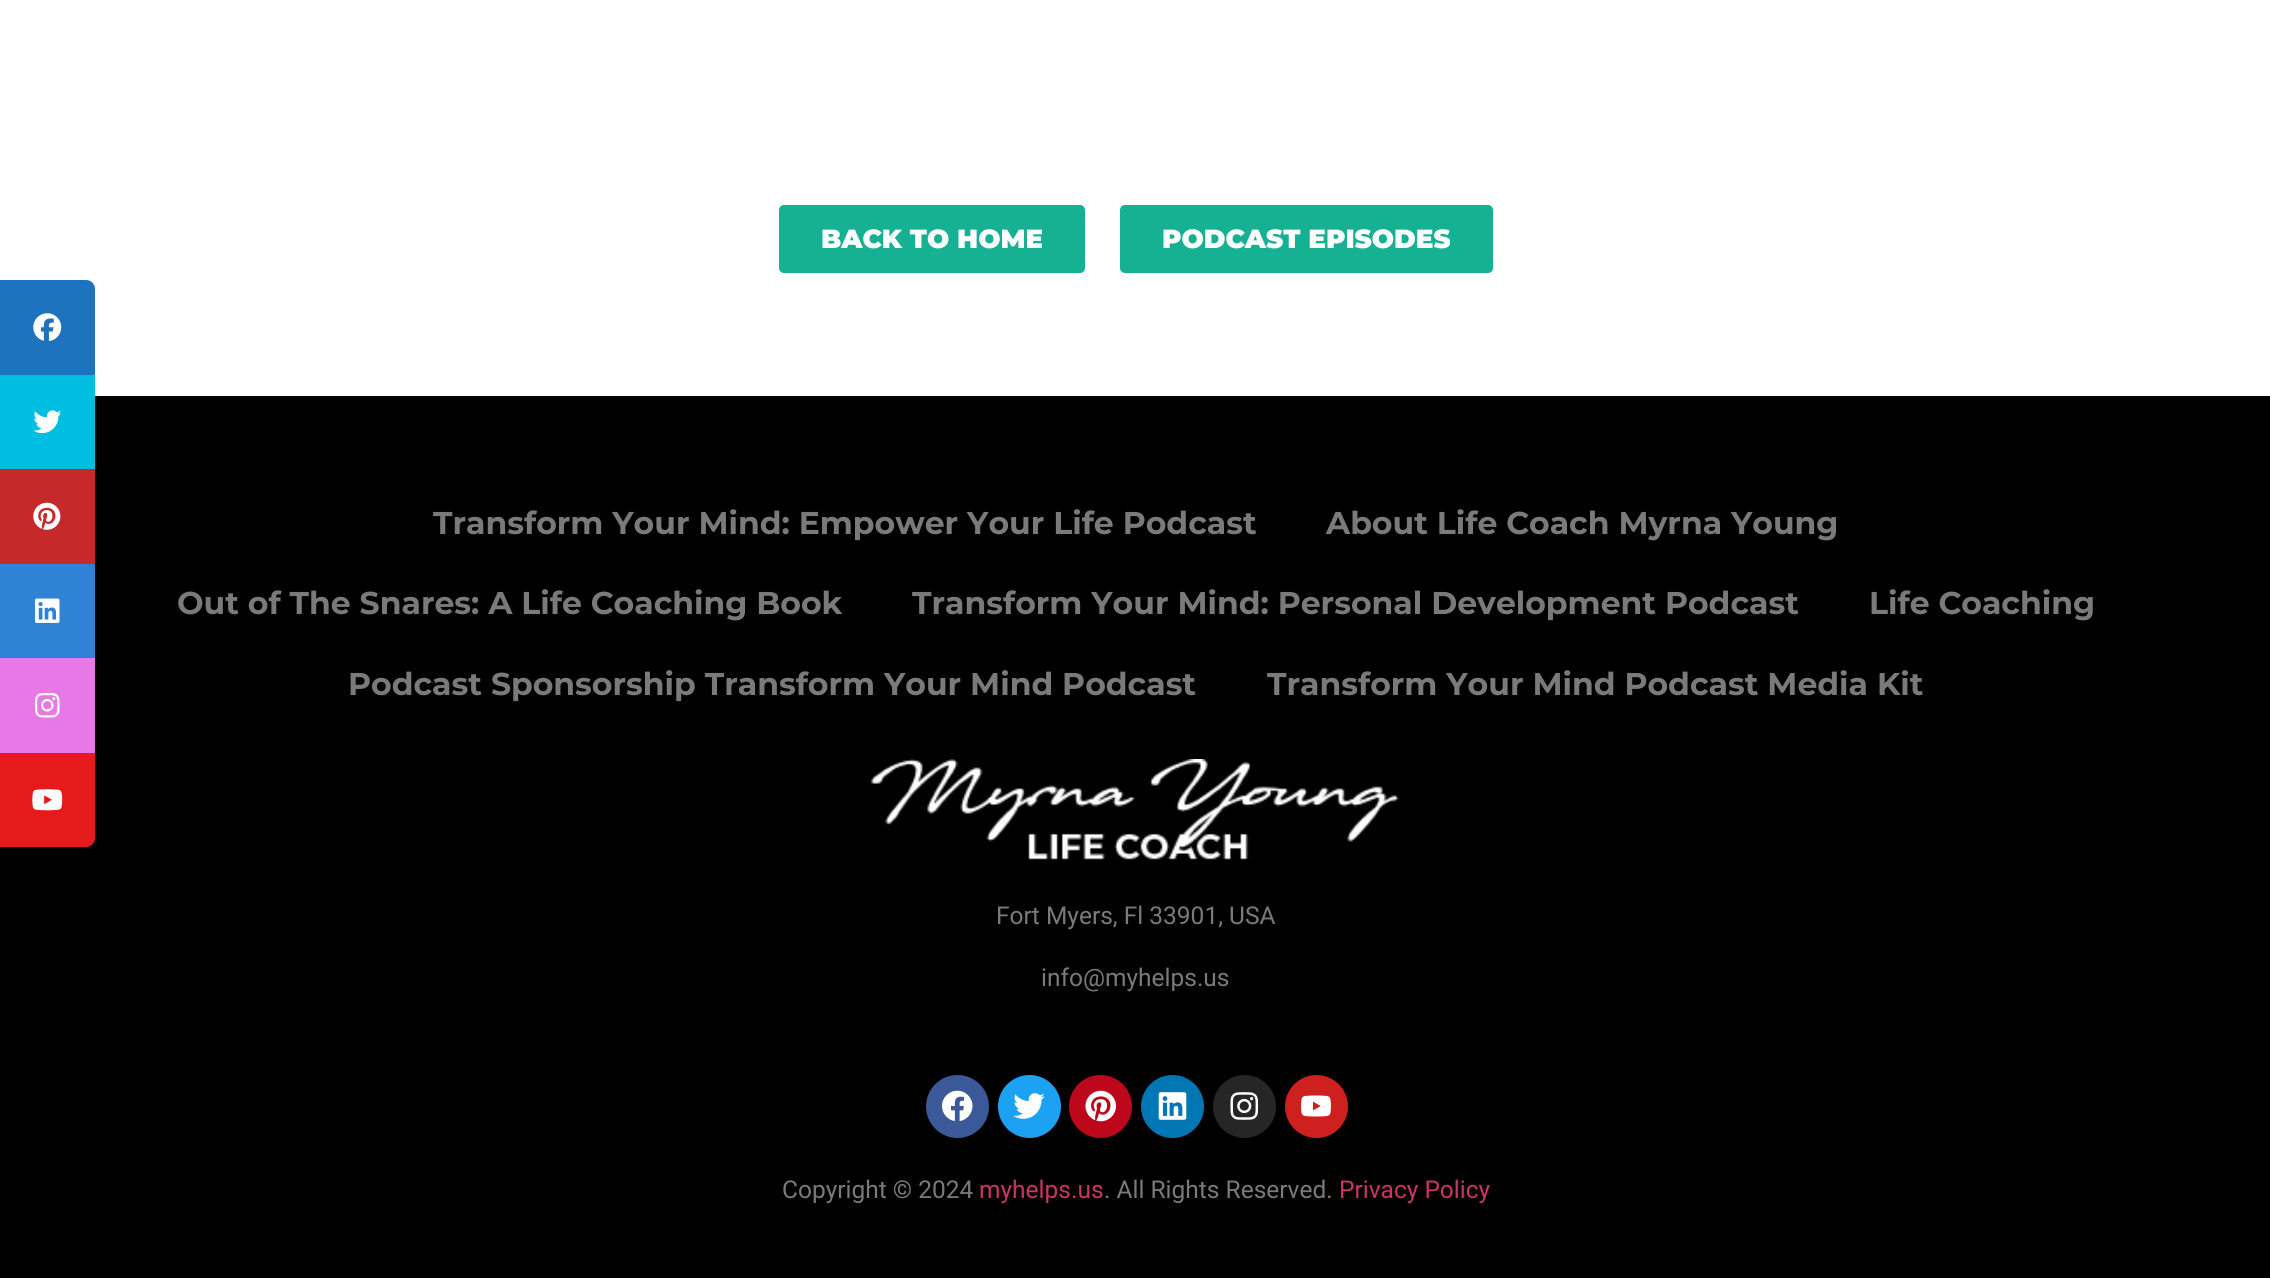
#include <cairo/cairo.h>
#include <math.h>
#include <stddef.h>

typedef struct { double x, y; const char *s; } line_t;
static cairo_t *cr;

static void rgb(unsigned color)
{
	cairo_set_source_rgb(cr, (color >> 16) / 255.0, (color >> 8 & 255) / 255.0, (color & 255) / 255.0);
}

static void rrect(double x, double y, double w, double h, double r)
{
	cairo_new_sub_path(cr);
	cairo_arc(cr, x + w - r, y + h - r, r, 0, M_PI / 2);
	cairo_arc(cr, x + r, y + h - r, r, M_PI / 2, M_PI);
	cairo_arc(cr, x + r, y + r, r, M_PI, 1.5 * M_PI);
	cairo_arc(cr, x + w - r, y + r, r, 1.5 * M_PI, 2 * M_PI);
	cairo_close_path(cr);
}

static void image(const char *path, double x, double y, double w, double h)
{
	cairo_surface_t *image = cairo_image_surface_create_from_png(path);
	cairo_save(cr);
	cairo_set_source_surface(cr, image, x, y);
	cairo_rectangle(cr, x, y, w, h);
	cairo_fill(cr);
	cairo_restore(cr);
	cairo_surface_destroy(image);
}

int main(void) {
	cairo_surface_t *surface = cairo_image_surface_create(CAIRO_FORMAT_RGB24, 2270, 1278);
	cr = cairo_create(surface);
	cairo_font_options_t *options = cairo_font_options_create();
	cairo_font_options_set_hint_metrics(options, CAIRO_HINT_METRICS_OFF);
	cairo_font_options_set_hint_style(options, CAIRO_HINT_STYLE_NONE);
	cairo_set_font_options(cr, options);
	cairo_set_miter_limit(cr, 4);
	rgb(0xffffff);
	cairo_paint(cr);
	rgb(0x15b192);
	rrect(779, 205, 306, 68, 5);
	cairo_fill(cr);
	rrect(1120, 205, 373, 68, 5);
	cairo_fill(cr);
	rgb(0x1e73be);
	cairo_new_path(cr);
	cairo_move_to(cr, 0, 280);
	cairo_line_to(cr, 86, 280);
	cairo_curve_to(cr, 91, 280, 95, 284, 95, 289);
	cairo_line_to(cr, 95, 375);
	cairo_line_to(cr, 0, 375);
	cairo_close_path(cr);
	cairo_fill(cr);
	image("img/1.png", 33, 313, 29, 29);
	rgb(0x000000);
	cairo_rectangle(cr, 0, 396, 2270, 882);
	cairo_fill(cr);
	rgb(0x00bde2);
	cairo_rectangle(cr, 0, 375, 95, 94);
	cairo_fill(cr);
	image("img/2.png", 33, 410, 29, 24);
	rgb(0xc62929);
	cairo_rectangle(cr, 0, 469, 95, 95);
	cairo_fill(cr);
	image("img/3.png", 33, 502, 28, 28);
	rgb(0x2f82d6);
	cairo_rectangle(cr, 0, 564, 95, 94);
	cairo_fill(cr);
	image("img/4.png", 35, 598, 25, 25);
	rgb(0xe878e8);
	cairo_rectangle(cr, 0, 658, 95, 95);
	cairo_fill(cr);
	image("img/5.png", 35, 693, 25, 25);
	rgb(0xe51b1b);
	cairo_new_path(cr);
	cairo_move_to(cr, 0, 753);
	cairo_line_to(cr, 95, 753);
	cairo_line_to(cr, 95, 838);
	cairo_curve_to(cr, 95, 843, 91, 847, 86, 847);
	cairo_line_to(cr, 0, 847);
	cairo_close_path(cr);
	cairo_fill(cr);
	image("img/6.png", 32, 789, 31, 22);
	image("img/7.png", 871, 759, 528, 103);
	rgb(0x3b5998);
	cairo_arc(cr, 957.5, 1106.5, 31.5, 0, 2 * M_PI);
	cairo_fill(cr);
	image("img/8.png", 942, 1090, 31, 31);
	rgb(0x1da1f2);
	cairo_arc(cr, 1029.5, 1106.5, 31.5, 0, 2 * M_PI);
	cairo_fill(cr);
	image("img/9.png", 1013, 1093, 32, 26);
	rgb(0xbd081c);
	cairo_arc(cr, 1100.5, 1106.5, 31.5, 0, 2 * M_PI);
	cairo_fill(cr);
	image("img/10.png", 1085, 1090, 31, 32);
	rgb(0x0077b5);
	cairo_arc(cr, 1172.5, 1106.5, 31.5, 0, 2 * M_PI);
	cairo_fill(cr);
	image("img/11.png", 1158, 1092, 29, 28);
	rgb(0x262626);
	cairo_arc(cr, 1244.5, 1106.5, 31.5, 0, 2 * M_PI);
	cairo_fill(cr);
	image("img/12.png", 1230, 1092, 29, 28);
	rgb(0xcd201f);
	cairo_arc(cr, 1316.5, 1106.5, 31.5, 0, 2 * M_PI);
	cairo_fill(cr);
	image("img/13.png", 1301, 1095, 30, 22);
	cairo_select_font_face(cr, "Montserrat Black", CAIRO_FONT_SLANT_NORMAL, CAIRO_FONT_WEIGHT_NORMAL);
	cairo_set_font_size(cr, 26.25);
	rgb(0xffffff);
	cairo_move_to(cr, 821, 248);
	cairo_show_text(cr, "BACK TO HOME");
	cairo_move_to(cr, 1162, 248);
	cairo_show_text(cr, "PODCAST EPISODES");
	cairo_select_font_face(cr, "Montserrat", CAIRO_FONT_SLANT_NORMAL, CAIRO_FONT_WEIGHT_BOLD);
	cairo_set_font_size(cr, 31.5);
	rgb(0x7a7a7a);
	{
		static const line_t items[] = {
			{433, 534, "Transform Your Mind: Empower Your Life Podcast"},
			{1326, 534, "About Life Coach Myrna Young"},
			{177, 614, "Out of The Snares: A Life Coaching Book"},
			{912, 614, "Transform Your Mind: Personal Development Podcast"},
			{1869, 614, "Life Coaching"},
			{348, 695, "Podcast Sponsorship Transform Your Mind Podcast"},
			{1267, 695, "Transform Your Mind Podcast Media Kit"},
		};
		for (size_t i = 0; i < sizeof items / sizeof *items; i++) {
			cairo_move_to(cr, items[i].x, items[i].y);
			cairo_show_text(cr, items[i].s);
		}
	}
	cairo_select_font_face(cr, "Roboto", CAIRO_FONT_SLANT_NORMAL, CAIRO_FONT_WEIGHT_NORMAL);
	cairo_set_font_size(cr, 24.5);
	{
		static const line_t items[] = {
			{996, 924, "Fort Myers, Fl 33901, USA"},
			{1041, 986, "info@myhelps.us"},
			{782, 1198, "Copyright © 2024"},
		};
		for (size_t i = 0; i < sizeof items / sizeof *items; i++) {
			cairo_move_to(cr, items[i].x, items[i].y);
			cairo_show_text(cr, items[i].s);
		}
	}
	rgb(0xcc3366);
	cairo_move_to(cr, 979, 1198);
	cairo_show_text(cr, "myhelps.us");
	rgb(0x7a7a7a);
	cairo_move_to(cr, 1104, 1198);
	cairo_show_text(cr, ". All Rights Reserved.");
	rgb(0xcc3366);
	cairo_move_to(cr, 1339, 1198);
	cairo_show_text(cr, "Privacy Policy");
	cairo_surface_write_to_png(surface, "page.png");
	cairo_font_options_destroy(options);
	cairo_destroy(cr);
	cairo_surface_destroy(surface);
	return 0;
}
